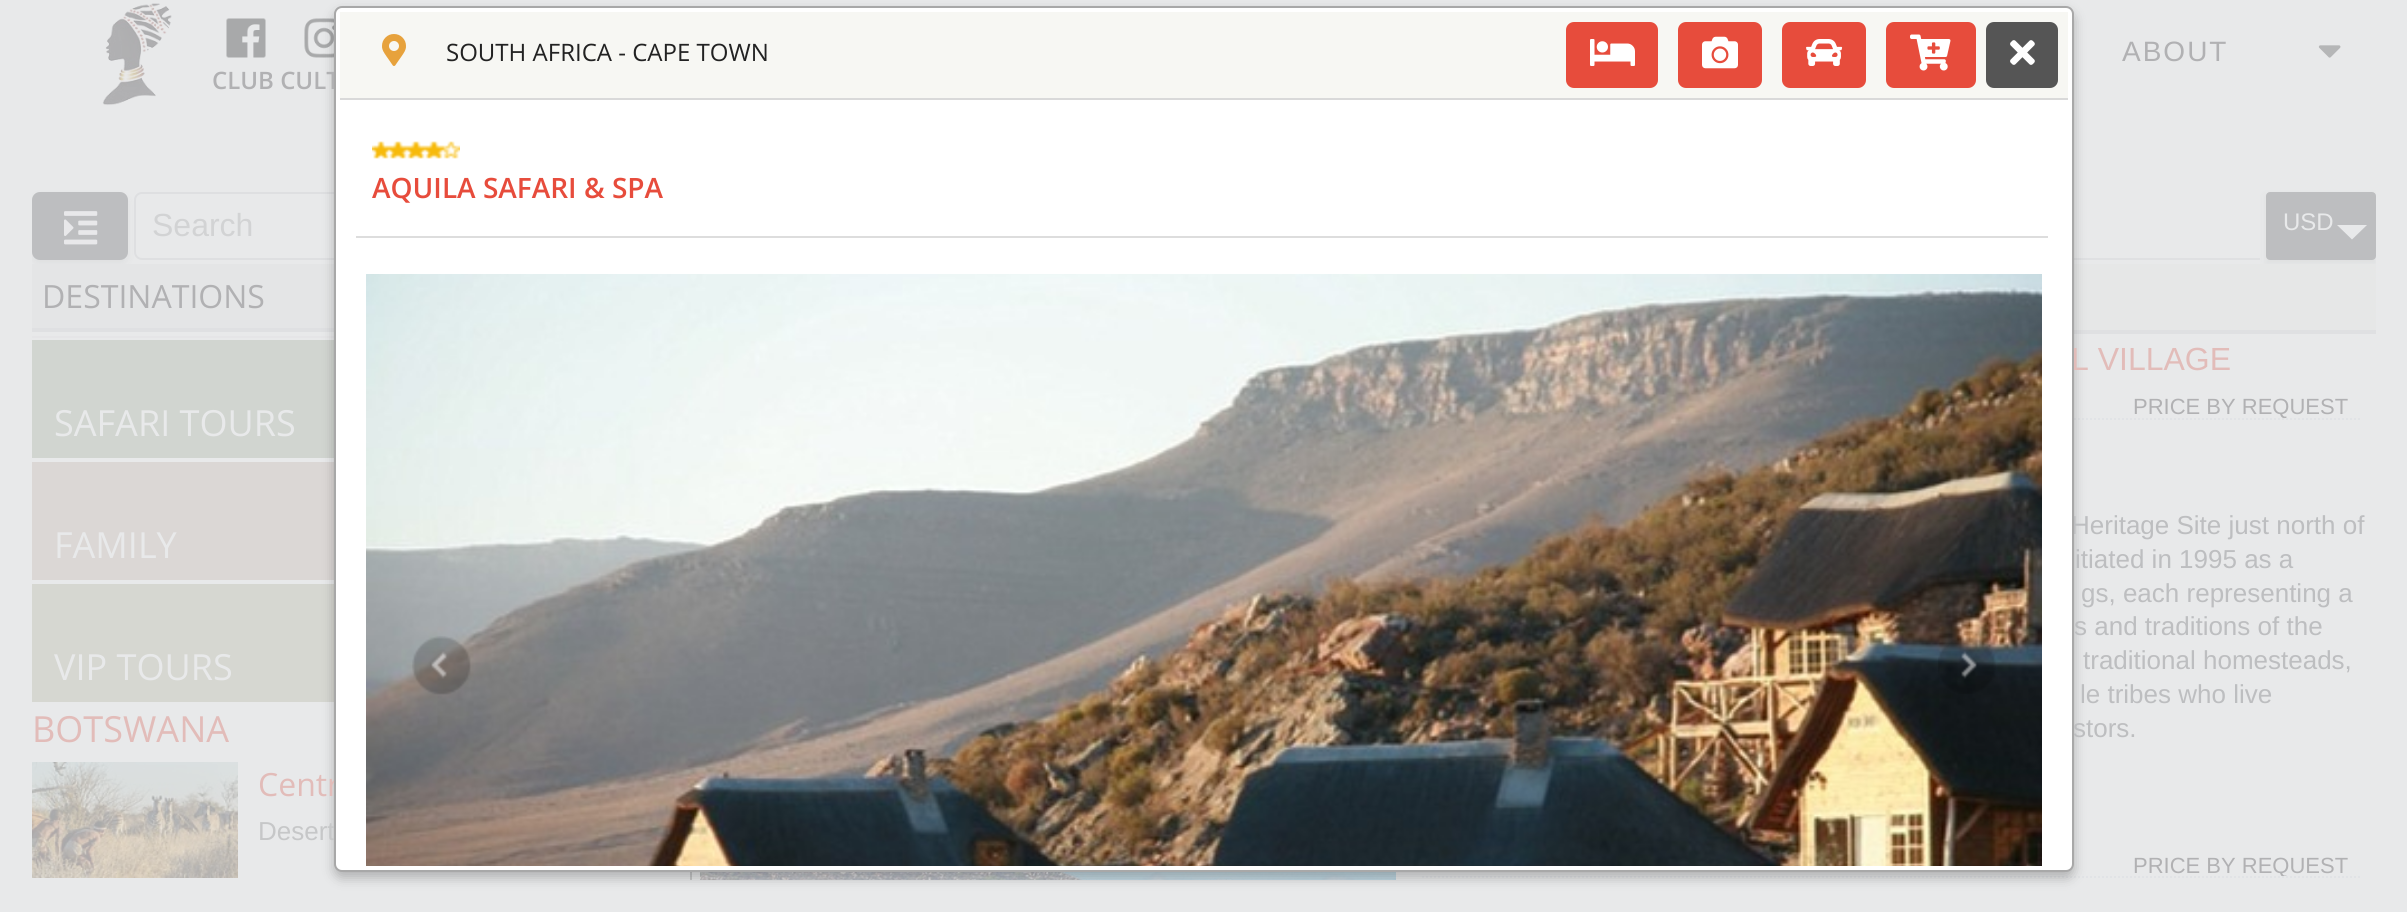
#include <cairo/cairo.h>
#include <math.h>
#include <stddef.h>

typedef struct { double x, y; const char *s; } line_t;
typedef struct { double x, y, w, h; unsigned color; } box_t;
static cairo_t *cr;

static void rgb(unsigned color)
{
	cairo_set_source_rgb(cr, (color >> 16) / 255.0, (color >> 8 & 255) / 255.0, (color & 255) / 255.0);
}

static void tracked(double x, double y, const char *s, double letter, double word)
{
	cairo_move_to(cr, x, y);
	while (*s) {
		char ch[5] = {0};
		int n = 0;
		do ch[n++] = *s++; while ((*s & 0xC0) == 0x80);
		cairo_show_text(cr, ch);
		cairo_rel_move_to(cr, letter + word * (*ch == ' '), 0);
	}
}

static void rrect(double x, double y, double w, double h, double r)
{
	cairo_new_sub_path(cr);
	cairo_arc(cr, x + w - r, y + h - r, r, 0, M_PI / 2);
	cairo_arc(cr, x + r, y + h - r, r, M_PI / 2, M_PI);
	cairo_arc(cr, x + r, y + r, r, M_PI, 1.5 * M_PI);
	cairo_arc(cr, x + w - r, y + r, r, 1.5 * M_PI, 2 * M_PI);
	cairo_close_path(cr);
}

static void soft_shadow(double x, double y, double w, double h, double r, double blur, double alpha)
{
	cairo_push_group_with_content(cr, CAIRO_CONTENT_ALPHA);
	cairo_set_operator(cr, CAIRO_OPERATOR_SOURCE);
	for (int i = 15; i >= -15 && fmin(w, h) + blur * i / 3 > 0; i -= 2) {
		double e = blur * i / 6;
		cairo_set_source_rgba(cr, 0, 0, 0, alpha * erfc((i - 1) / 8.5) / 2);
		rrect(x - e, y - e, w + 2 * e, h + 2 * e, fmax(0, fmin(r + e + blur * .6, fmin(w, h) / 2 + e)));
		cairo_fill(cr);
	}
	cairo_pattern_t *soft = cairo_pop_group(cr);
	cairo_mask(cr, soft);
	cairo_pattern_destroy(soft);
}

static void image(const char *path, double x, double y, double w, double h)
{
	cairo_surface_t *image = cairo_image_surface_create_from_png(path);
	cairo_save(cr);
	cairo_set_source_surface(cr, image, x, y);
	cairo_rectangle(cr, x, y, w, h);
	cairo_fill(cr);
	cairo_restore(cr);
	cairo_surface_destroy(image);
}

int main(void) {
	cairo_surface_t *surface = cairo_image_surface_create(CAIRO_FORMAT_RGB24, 2407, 912);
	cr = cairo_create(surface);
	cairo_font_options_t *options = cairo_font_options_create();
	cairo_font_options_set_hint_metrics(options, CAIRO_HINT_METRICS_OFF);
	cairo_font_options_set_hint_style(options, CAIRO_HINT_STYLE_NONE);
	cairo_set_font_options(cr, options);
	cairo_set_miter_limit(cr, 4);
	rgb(0xe8e9ea);
	cairo_paint(cr);
	image("img/1.png", 2318, 45, 23, 13);
	image("img/2.png", 102, 3, 70, 103);
	image("img/3.png", 226, 18, 40, 40);
	image("img/4.png", 304, 18, 30, 40);
	cairo_save(cr);
	cairo_rectangle(cr, 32, 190, 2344, 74);
	cairo_clip(cr);
	rgb(0xa8a9aa);
	soft_shadow(32, 196, 96, 68, 8, 4, 0.16);
	cairo_restore(cr);
	rgb(0xbdbec0);
	rrect(32, 192, 96, 68, 8);
	cairo_fill(cr);
	image("img/5.png", 64, 211, 34, 34);
	rrect(135, 193, 556, 66, 7);
	rgb(0xdedfe1);
	cairo_stroke(cr);
	rgb(0xdfe0e2);
	cairo_rectangle(cr, 2074, 258, 186, 2);
	cairo_fill(cr);
	cairo_save(cr);
	cairo_rectangle(cr, 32, 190, 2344, 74);
	cairo_clip(cr);
	rgb(0xa8a9aa);
	soft_shadow(2266, 196, 110, 68, 0, 4, 0.16);
	cairo_restore(cr);
	rgb(0xbdbec0);
	rrect(2267, 193, 108, 66, 3);
	cairo_fill_preserve(cr);
	cairo_stroke(cr);
	rgb(0xe8e9ea);
	cairo_new_path(cr);
	cairo_move_to(cr, 2367, 225);
	cairo_line_to(cr, 2352, 239.5);
	cairo_line_to(cr, 2337, 225);
	cairo_close_path(cr);
	cairo_fill(cr);
	{
		static const box_t items[] = {
			{32, 264, 302, 64, 0xe4e5e6},
			{32, 328, 302, 4, 0xdfe0e2},
			{690, 872, 2, 8, 0xc6c7c8},
			{32, 336, 302, 2, 0xe5e5e7},
			{32, 340, 302, 118, 0xd1d5d0},
			{32, 462, 302, 118, 0xdbd7d5},
			{32, 584, 302, 118, 0xd6d7d1},
		};
		for (size_t i = 0; i < sizeof items / sizeof *items; i++) {
			rgb(items[i].color);
			cairo_rectangle(cr, items[i].x, items[i].y, items[i].w, items[i].h);
			cairo_fill(cr);
		}
	}
	image("img/6.png", 32, 762, 206, 116);
	rgb(0xe6e7e7);
	cairo_rectangle(cr, 2074, 264, 302, 66);
	cairo_fill(cr);
	rgb(0xdfe0e2);
	cairo_rectangle(cr, 2074, 330, 302, 4);
	cairo_fill(cr);
	cairo_new_path(cr);
	cairo_move_to(cr, 1422, 419);
	cairo_line_to(cr, 2362, 419);
	rgb(0xe1e3e6);
	cairo_set_dash(cr, (double[]){2, 2}, 2, 0);
	cairo_stroke(cr);
	image("img/7.png", 700, 872, 696, 8);
	cairo_new_path(cr);
	cairo_move_to(cr, 1422, 877);
	cairo_line_to(cr, 2362, 877);
	cairo_stroke(cr);
	rgb(0x000000);
	soft_shadow(334, 12, 1740, 866, 8, 6, 0.24);
	cairo_select_font_face(cr, "Liberation Sans", CAIRO_FONT_SLANT_NORMAL, CAIRO_FONT_WEIGHT_NORMAL);
	cairo_set_font_size(cr, 28);
	rgb(0xb1b1b3);
	tracked(2122, 61, "ABOUT", 2, 0);
	cairo_select_font_face(cr, "Open Sans SemiBold", CAIRO_FONT_SLANT_NORMAL, CAIRO_FONT_WEIGHT_NORMAL);
	cairo_set_font_size(cr, 24);
	cairo_move_to(cr, 212, 89);
	cairo_show_text(cr, "CLUB CULT");
	cairo_select_font_face(cr, "Liberation Sans", CAIRO_FONT_SLANT_NORMAL, CAIRO_FONT_WEIGHT_NORMAL);
	cairo_set_font_size(cr, 32);
	rgb(0xd2d3d4);
	cairo_move_to(cr, 152, 236);
	cairo_show_text(cr, "Search");
	cairo_set_font_size(cr, 24);
	rgb(0xe8e9ea);
	cairo_move_to(cr, 2283, 230);
	cairo_show_text(cr, "USD");
	cairo_select_font_face(cr, "Open Sans", CAIRO_FONT_SLANT_NORMAL, CAIRO_FONT_WEIGHT_NORMAL);
	cairo_set_font_size(cr, 32);
	rgb(0xb1b1b3);
	cairo_move_to(cr, 42, 308);
	cairo_show_text(cr, "DESTINATIONS");
	cairo_set_font_size(cr, 36);
	rgb(0xe8e9ea);
	{
		static const line_t items[] = {
			{54, 436, "SAFARI TOURS"},
			{54, 558, "FAMILY"},
			{54, 680, "VIP TOURS"},
		};
		for (size_t i = 0; i < sizeof items / sizeof *items; i++) {
			cairo_move_to(cr, items[i].x, items[i].y);
			cairo_show_text(cr, items[i].s);
		}
	}
	rgb(0xe2bcb9);
	cairo_move_to(cr, 32, 742);
	cairo_show_text(cr, "BOTSWANA");
	cairo_set_font_size(cr, 32);
	cairo_move_to(cr, 258, 796);
	cairo_show_text(cr, "Centr");
	cairo_select_font_face(cr, "Liberation Sans", CAIRO_FONT_SLANT_NORMAL, CAIRO_FONT_WEIGHT_NORMAL);
	cairo_set_font_size(cr, 26);
	rgb(0xc6c7c8);
	cairo_move_to(cr, 258, 840);
	cairo_show_text(cr, "Desert");
	cairo_set_font_size(cr, 32);
	rgb(0xe2bcb9);
	cairo_move_to(cr, 2071, 370);
	cairo_show_text(cr, "L VILLAGE");
	cairo_set_font_size(cr, 22);
	rgb(0xb1b1b3);
	cairo_move_to(cr, 2133, 414);
	cairo_show_text(cr, "PRICE BY REQUEST");
	cairo_set_font_size(cr, 26);
	rgb(0xbdbec0);
	{
		static const line_t items[] = {
			{2071, 534, "Heritage Site just north of"},
			{2075, 568, "itiated in 1995 as a"},
			{2081, 602, "gs, each representing a"},
			{2074, 635, "s and traditions of the"},
			{2083, 669, "traditional homesteads,"},
			{2080, 703, "le tribes who live"},
			{2073, 737, "stors."},
		};
		for (size_t i = 0; i < sizeof items / sizeof *items; i++) {
			cairo_move_to(cr, items[i].x, items[i].y);
			cairo_show_text(cr, items[i].s);
		}
	}
	cairo_save(cr);
	cairo_rectangle(cr, 2132, 842, 230, 34);
	cairo_clip(cr);
	cairo_set_font_size(cr, 22);
	rgb(0xb1b1b3);
	cairo_move_to(cr, 2133, 873);
	cairo_show_text(cr, "PRICE BY REQUEST");
	cairo_restore(cr);
	rgb(0xffffff);
	rrect(335, 7, 1738, 864, 7);
	cairo_fill_preserve(cr);
	rgb(0xa8a8a8);
	cairo_set_dash(cr, NULL, 0, 0);
	cairo_stroke(cr);
	rgb(0xf7f7f3);
	cairo_rectangle(cr, 340, 12, 1728, 86);
	cairo_fill(cr);
	rgb(0xd9d9d9);
	cairo_rectangle(cr, 340, 98, 1728, 2);
	cairo_fill(cr);
	image("img/8.png", 382, 34, 24, 32);
	cairo_select_font_face(cr, "Open Sans", CAIRO_FONT_SLANT_NORMAL, CAIRO_FONT_WEIGHT_NORMAL);
	cairo_set_font_size(cr, 24);
	rgb(0x222222);
	cairo_move_to(cr, 446, 61);
	cairo_show_text(cr, "SOUTH AFRICA - CAPE TOWN");
	rgb(0xe74c3c);
	rrect(1566, 22, 92, 66, 8);
	cairo_fill(cr);
	image("img/9.png", 1590, 39, 45, 27);
	rrect(1678, 22, 84, 66, 8);
	cairo_fill(cr);
	image("img/10.png", 1702, 36, 36, 33);
	rrect(1782, 22, 84, 66, 8);
	cairo_fill(cr);
	image("img/11.png", 1806, 39, 37, 27);
	rrect(1886, 22, 90, 66, 8);
	cairo_fill(cr);
	image("img/12.png", 1910, 34, 41, 37);
	rgb(0x555555);
	rrect(1986, 22, 72, 66, 8);
	cairo_fill(cr);
	image("img/13.png", 2010, 40, 25, 25);
	rgb(0xdddddd);
	cairo_rectangle(cr, 356, 236, 1692, 2);
	cairo_fill(cr);
	image("img/14.png", 372, 141, 88, 18);
	cairo_select_font_face(cr, "Open Sans SemiBold", CAIRO_FONT_SLANT_NORMAL, CAIRO_FONT_WEIGHT_NORMAL);
	cairo_set_font_size(cr, 28);
	rgb(0xe74c3c);
	cairo_move_to(cr, 372, 198);
	cairo_show_text(cr, "AQUILA SAFARI & SPA");
	image("img/15.png", 366, 274, 1676, 592);
	image("img/16.png", 412, 636, 59, 59);
	image("img/17.png", 1938, 636, 58, 58);
	cairo_surface_write_to_png(surface, "page.png");
	cairo_font_options_destroy(options);
	cairo_destroy(cr);
	cairo_surface_destroy(surface);
	return 0;
}
